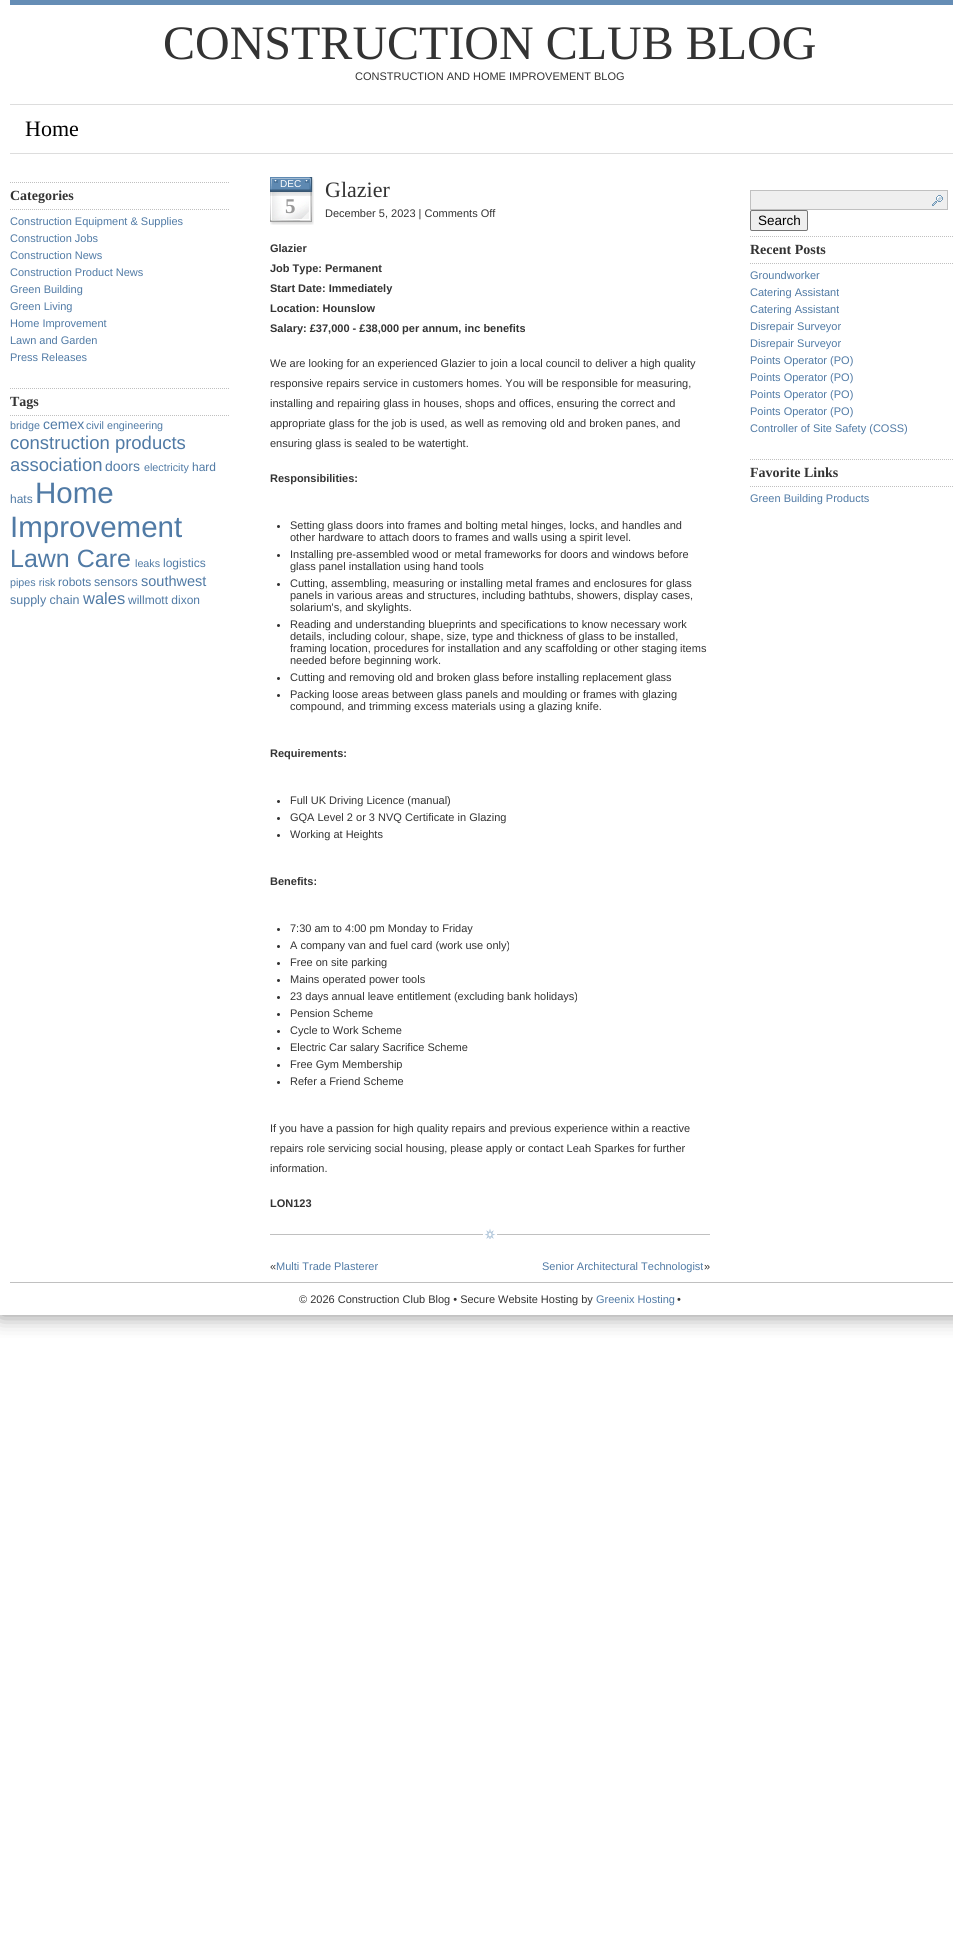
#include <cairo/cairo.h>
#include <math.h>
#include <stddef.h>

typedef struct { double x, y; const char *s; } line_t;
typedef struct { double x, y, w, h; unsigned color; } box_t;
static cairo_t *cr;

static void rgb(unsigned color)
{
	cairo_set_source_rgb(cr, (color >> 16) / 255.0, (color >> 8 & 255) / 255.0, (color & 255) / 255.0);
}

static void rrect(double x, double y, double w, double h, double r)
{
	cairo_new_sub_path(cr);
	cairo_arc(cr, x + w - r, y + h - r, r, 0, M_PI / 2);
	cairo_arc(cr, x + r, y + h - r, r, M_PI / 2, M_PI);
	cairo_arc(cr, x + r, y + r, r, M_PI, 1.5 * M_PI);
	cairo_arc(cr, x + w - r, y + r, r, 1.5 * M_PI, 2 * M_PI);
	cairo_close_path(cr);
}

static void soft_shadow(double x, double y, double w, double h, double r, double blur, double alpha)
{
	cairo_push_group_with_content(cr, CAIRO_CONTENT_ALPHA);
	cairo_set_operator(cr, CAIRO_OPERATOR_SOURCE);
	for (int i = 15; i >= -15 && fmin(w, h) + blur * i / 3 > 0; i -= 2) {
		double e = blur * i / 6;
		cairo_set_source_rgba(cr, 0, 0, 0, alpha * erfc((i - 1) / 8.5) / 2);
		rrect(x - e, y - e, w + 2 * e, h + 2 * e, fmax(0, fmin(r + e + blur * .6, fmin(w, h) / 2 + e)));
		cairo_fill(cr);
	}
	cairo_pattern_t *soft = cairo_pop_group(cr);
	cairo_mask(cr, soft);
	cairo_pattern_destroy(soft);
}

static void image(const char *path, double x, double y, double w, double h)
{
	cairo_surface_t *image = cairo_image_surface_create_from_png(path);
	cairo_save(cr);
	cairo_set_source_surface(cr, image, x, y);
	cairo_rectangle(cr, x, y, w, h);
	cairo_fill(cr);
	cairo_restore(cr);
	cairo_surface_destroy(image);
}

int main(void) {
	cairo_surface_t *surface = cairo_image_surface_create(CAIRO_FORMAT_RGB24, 953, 1945);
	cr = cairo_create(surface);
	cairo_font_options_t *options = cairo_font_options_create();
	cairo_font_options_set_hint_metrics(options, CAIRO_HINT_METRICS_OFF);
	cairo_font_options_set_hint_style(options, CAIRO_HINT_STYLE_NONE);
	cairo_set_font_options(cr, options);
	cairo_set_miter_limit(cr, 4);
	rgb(0xffffff);
	cairo_paint(cr);
	cairo_save(cr);
	cairo_rectangle(cr, 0, 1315, 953, 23);
	cairo_clip(cr);
	rgb(0x888888);
	soft_shadow(0, 0, 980, 1315, 0, 11, 1);
	cairo_restore(cr);
	{
		static const box_t items[] = {
			{10, 0, 943, 5, 0x658db5},
			{10, 104, 943, 1, 0xdddddd},
			{10, 153, 943, 1, 0xdddddd},
		};
		for (size_t i = 0; i < sizeof items / sizeof *items; i++) {
			rgb(items[i].color);
			cairo_rectangle(cr, items[i].x, items[i].y, items[i].w, items[i].h);
			cairo_fill(cr);
		}
	}
	cairo_new_path(cr);
	cairo_move_to(cr, 10, 182.5);
	cairo_line_to(cr, 230, 182.5);
	rgb(0xc0c0c0);
	cairo_set_line_width(cr, 1);
	cairo_set_dash(cr, (double[]){1, 1}, 2, 0);
	cairo_stroke(cr);
	cairo_new_path(cr);
	cairo_move_to(cr, 10, 209.5);
	cairo_line_to(cr, 230, 209.5);
	cairo_stroke(cr);
	cairo_new_path(cr);
	cairo_move_to(cr, 10, 388.5);
	cairo_line_to(cr, 230, 388.5);
	cairo_stroke(cr);
	cairo_new_path(cr);
	cairo_move_to(cr, 10, 415.5);
	cairo_line_to(cr, 230, 415.5);
	cairo_stroke(cr);
	image("img/1.png", 270, 177, 44, 48);
	rgb(0x333333);
	cairo_arc(cr, 278.5, 526.5, 1.5, 0, 2 * M_PI);
	cairo_fill(cr);
	cairo_arc(cr, 278.5, 555.5, 1.5, 0, 2 * M_PI);
	cairo_fill(cr);
	cairo_arc(cr, 278.5, 584.5, 1.5, 0, 2 * M_PI);
	cairo_fill(cr);
	cairo_arc(cr, 278.5, 625.5, 1.5, 0, 2 * M_PI);
	cairo_fill(cr);
	cairo_arc(cr, 278.5, 678.5, 1.5, 0, 2 * M_PI);
	cairo_fill(cr);
	cairo_arc(cr, 278.5, 695.5, 1.5, 0, 2 * M_PI);
	cairo_fill(cr);
	cairo_arc(cr, 278.5, 801.5, 1.5, 0, 2 * M_PI);
	cairo_fill(cr);
	cairo_arc(cr, 278.5, 818.5, 1.5, 0, 2 * M_PI);
	cairo_fill(cr);
	cairo_arc(cr, 278.5, 835.5, 1.5, 0, 2 * M_PI);
	cairo_fill(cr);
	cairo_arc(cr, 278.5, 929.5, 1.5, 0, 2 * M_PI);
	cairo_fill(cr);
	cairo_arc(cr, 278.5, 946.5, 1.5, 0, 2 * M_PI);
	cairo_fill(cr);
	cairo_arc(cr, 278.5, 963.5, 1.5, 0, 2 * M_PI);
	cairo_fill(cr);
	cairo_arc(cr, 278.5, 980.5, 1.5, 0, 2 * M_PI);
	cairo_fill(cr);
	cairo_arc(cr, 278.5, 997.5, 1.5, 0, 2 * M_PI);
	cairo_fill(cr);
	cairo_arc(cr, 278.5, 1014.5, 1.5, 0, 2 * M_PI);
	cairo_fill(cr);
	cairo_arc(cr, 278.5, 1031.5, 1.5, 0, 2 * M_PI);
	cairo_fill(cr);
	cairo_arc(cr, 278.5, 1048.5, 1.5, 0, 2 * M_PI);
	cairo_fill(cr);
	cairo_arc(cr, 278.5, 1065.5, 1.5, 0, 2 * M_PI);
	cairo_fill(cr);
	cairo_arc(cr, 278.5, 1082.5, 1.5, 0, 2 * M_PI);
	cairo_fill(cr);
	image("img/2.png", 270, 1228, 440, 32);
	rgb(0xefefef);
	cairo_rectangle(cr, 751, 191, 196, 18);
	cairo_fill(cr);
	image("img/3.png", 932, 195, 11, 11);
	cairo_rectangle(cr, 750.5, 190.5, 197, 19);
	rgb(0xc0c0c0);
	cairo_set_dash(cr, NULL, 0, 0);
	cairo_stroke(cr);
	rgb(0xefefef);
	rrect(750.5, 210.5, 57, 20, 1.5);
	cairo_fill_preserve(cr);
	rgb(0x767676);
	cairo_stroke(cr);
	cairo_new_path(cr);
	cairo_move_to(cr, 750, 236.5);
	cairo_line_to(cr, 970, 236.5);
	rgb(0xc0c0c0);
	cairo_set_dash(cr, (double[]){1, 1}, 2, 0);
	cairo_stroke(cr);
	cairo_new_path(cr);
	cairo_move_to(cr, 750, 263.5);
	cairo_line_to(cr, 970, 263.5);
	cairo_stroke(cr);
	cairo_new_path(cr);
	cairo_move_to(cr, 750, 459.5);
	cairo_line_to(cr, 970, 459.5);
	cairo_stroke(cr);
	cairo_new_path(cr);
	cairo_move_to(cr, 750, 486.5);
	cairo_line_to(cr, 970, 486.5);
	cairo_stroke(cr);
	cairo_rectangle(cr, 10, 1282, 943, 1);
	cairo_fill(cr);
	cairo_select_font_face(cr, "Liberation Serif", CAIRO_FONT_SLANT_NORMAL, CAIRO_FONT_WEIGHT_NORMAL);
	cairo_set_font_size(cr, 48);
	rgb(0x333333);
	cairo_move_to(cr, 163, 59);
	cairo_show_text(cr, "CONSTRUCTION CLUB BLOG");
	cairo_select_font_face(cr, "Liberation Sans", CAIRO_FONT_SLANT_NORMAL, CAIRO_FONT_WEIGHT_NORMAL);
	cairo_set_font_size(cr, 11);
	cairo_move_to(cr, 355, 80);
	cairo_show_text(cr, "CONSTRUCTION AND HOME IMPROVEMENT BLOG");
	cairo_select_font_face(cr, "Liberation Serif", CAIRO_FONT_SLANT_NORMAL, CAIRO_FONT_WEIGHT_NORMAL);
	cairo_set_font_size(cr, 22);
	rgb(0x000000);
	cairo_move_to(cr, 25, 136);
	cairo_show_text(cr, "Home");
	cairo_select_font_face(cr, "Liberation Serif", CAIRO_FONT_SLANT_NORMAL, CAIRO_FONT_WEIGHT_BOLD);
	cairo_set_font_size(cr, 14);
	rgb(0x333333);
	cairo_move_to(cr, 10, 200);
	cairo_show_text(cr, "Categories");
	cairo_select_font_face(cr, "Liberation Sans", CAIRO_FONT_SLANT_NORMAL, CAIRO_FONT_WEIGHT_NORMAL);
	cairo_set_font_size(cr, 11);
	rgb(0x507aa5);
	{
		static const line_t items[] = {
			{10, 225, "Construction Equipment & Supplies"},
			{10, 242, "Construction Jobs"},
			{10, 259, "Construction News"},
			{10, 276, "Construction Product News"},
			{10, 293, "Green Building"},
			{10, 310, "Green Living"},
			{10, 327, "Home Improvement"},
			{10, 344, "Lawn and Garden"},
			{10, 361, "Press Releases"},
		};
		for (size_t i = 0; i < sizeof items / sizeof *items; i++) {
			cairo_move_to(cr, items[i].x, items[i].y);
			cairo_show_text(cr, items[i].s);
		}
	}
	cairo_select_font_face(cr, "Liberation Serif", CAIRO_FONT_SLANT_NORMAL, CAIRO_FONT_WEIGHT_BOLD);
	cairo_set_font_size(cr, 14);
	rgb(0x333333);
	cairo_move_to(cr, 10, 406);
	cairo_show_text(cr, "Tags");
	cairo_select_font_face(cr, "Liberation Sans", CAIRO_FONT_SLANT_NORMAL, CAIRO_FONT_WEIGHT_NORMAL);
	cairo_set_font_size(cr, 10.75);
	rgb(0x507aa5);
	cairo_move_to(cr, 10, 429);
	cairo_show_text(cr, "bridge");
	cairo_set_font_size(cr, 14);
	cairo_move_to(cr, 43, 429);
	cairo_show_text(cr, "cemex");
	cairo_set_font_size(cr, 10.75);
	cairo_move_to(cr, 86, 429);
	cairo_show_text(cr, "civil engineering");
	cairo_set_font_size(cr, 18.5);
	cairo_move_to(cr, 10, 449);
	cairo_show_text(cr, "construction products");
	cairo_move_to(cr, 10, 471);
	cairo_show_text(cr, "association");
	cairo_set_font_size(cr, 14);
	cairo_move_to(cr, 105, 471);
	cairo_show_text(cr, "doors");
	cairo_set_font_size(cr, 10.75);
	cairo_move_to(cr, 144, 471);
	cairo_show_text(cr, "electricity");
	cairo_set_font_size(cr, 12);
	cairo_move_to(cr, 192, 471);
	cairo_show_text(cr, "hard");
	cairo_move_to(cr, 10, 503);
	cairo_show_text(cr, "hats");
	cairo_set_font_size(cr, 29.5);
	cairo_move_to(cr, 35, 503);
	cairo_show_text(cr, "Home");
	cairo_move_to(cr, 10, 537);
	cairo_show_text(cr, "Improvement");
	cairo_set_font_size(cr, 25);
	cairo_move_to(cr, 10, 567);
	cairo_show_text(cr, "Lawn Care");
	cairo_set_font_size(cr, 10.75);
	cairo_move_to(cr, 135, 567);
	cairo_show_text(cr, "leaks");
	cairo_set_font_size(cr, 12);
	cairo_move_to(cr, 163, 567);
	cairo_show_text(cr, "logistics");
	cairo_set_font_size(cr, 10.75);
	cairo_move_to(cr, 10, 586);
	cairo_show_text(cr, "pipes risk");
	cairo_set_font_size(cr, 12);
	cairo_move_to(cr, 58, 586);
	cairo_show_text(cr, "robots");
	cairo_set_font_size(cr, 12.5);
	cairo_move_to(cr, 94, 586);
	cairo_show_text(cr, "sensors");
	cairo_set_font_size(cr, 14.5);
	cairo_move_to(cr, 141, 586);
	cairo_show_text(cr, "southwest");
	cairo_set_font_size(cr, 12.5);
	cairo_move_to(cr, 10, 604);
	cairo_show_text(cr, "supply chain");
	cairo_set_font_size(cr, 16.5);
	cairo_move_to(cr, 83, 604);
	cairo_show_text(cr, "wales");
	cairo_set_font_size(cr, 12);
	cairo_move_to(cr, 128, 604);
	cairo_show_text(cr, "willmott dixon");
	cairo_set_font_size(cr, 10);
	rgb(0xffffff);
	cairo_move_to(cr, 280, 187);
	cairo_show_text(cr, "DEC");
	cairo_select_font_face(cr, "Liberation Serif", CAIRO_FONT_SLANT_NORMAL, CAIRO_FONT_WEIGHT_BOLD);
	cairo_set_font_size(cr, 21);
	rgb(0x999999);
	cairo_move_to(cr, 285, 213);
	cairo_show_text(cr, "5");
	cairo_select_font_face(cr, "Liberation Serif", CAIRO_FONT_SLANT_NORMAL, CAIRO_FONT_WEIGHT_NORMAL);
	cairo_set_font_size(cr, 22);
	rgb(0x333333);
	cairo_move_to(cr, 325, 197);
	cairo_show_text(cr, "Glazier");
	cairo_select_font_face(cr, "Liberation Sans", CAIRO_FONT_SLANT_NORMAL, CAIRO_FONT_WEIGHT_NORMAL);
	cairo_set_font_size(cr, 11);
	cairo_move_to(cr, 325, 217);
	cairo_show_text(cr, "December 5, 2023 | Comments Off");
	cairo_select_font_face(cr, "Liberation Sans", CAIRO_FONT_SLANT_NORMAL, CAIRO_FONT_WEIGHT_BOLD);
	{
		static const line_t items[] = {
			{270, 252, "Glazier"},
			{270, 272, "Job Type: Permanent"},
			{270, 292, "Start Date: Immediately"},
			{270, 312, "Location: Hounslow"},
			{270, 332, "Salary: £37,000 - £38,000 per annum, inc benefits"},
		};
		for (size_t i = 0; i < sizeof items / sizeof *items; i++) {
			cairo_move_to(cr, items[i].x, items[i].y);
			cairo_show_text(cr, items[i].s);
		}
	}
	cairo_select_font_face(cr, "Liberation Sans", CAIRO_FONT_SLANT_NORMAL, CAIRO_FONT_WEIGHT_NORMAL);
	{
		static const line_t items[] = {
			{270, 367, "We are looking for an experienced Glazier to join a local council to deliver a high quality"},
			{270, 387, "responsive repairs service in customers homes. You will be responsible for measuring,"},
			{270, 407, "installing and repairing glass in houses, shops and offices, ensuring the correct and"},
			{270, 427, "appropriate glass for the job is used, as well as removing old and broken panes, and"},
			{270, 447, "ensuring glass is sealed to be watertight."},
		};
		for (size_t i = 0; i < sizeof items / sizeof *items; i++) {
			cairo_move_to(cr, items[i].x, items[i].y);
			cairo_show_text(cr, items[i].s);
		}
	}
	cairo_select_font_face(cr, "Liberation Sans", CAIRO_FONT_SLANT_NORMAL, CAIRO_FONT_WEIGHT_BOLD);
	cairo_move_to(cr, 270, 482);
	cairo_show_text(cr, "Responsibilities:");
	cairo_select_font_face(cr, "Liberation Sans", CAIRO_FONT_SLANT_NORMAL, CAIRO_FONT_WEIGHT_NORMAL);
	{
		static const line_t items[] = {
			{290, 529, "Setting glass doors into frames and bolting metal hinges, locks, and handles and"},
			{290, 541, "other hardware to attach doors to frames and walls using a spirit level."},
			{290, 558, "Installing pre-assembled wood or metal frameworks for doors and windows before"},
			{290, 570, "glass panel installation using hand tools"},
			{290, 587, "Cutting, assembling, measuring or installing metal frames and enclosures for glass"},
			{290, 599, "panels in various areas and structures, including bathtubs, showers, display cases,"},
			{290, 611, "solarium's, and skylights."},
			{290, 628, "Reading and understanding blueprints and specifications to know necessary work"},
			{290, 640, "details, including colour, shape, size, type and thickness of glass to be installed,"},
			{290, 652, "framing location, procedures for installation and any scaffolding or other staging items"},
			{290, 664, "needed before beginning work."},
			{290, 681, "Cutting and removing old and broken glass before installing replacement glass"},
			{290, 698, "Packing loose areas between glass panels and moulding or frames with glazing"},
			{290, 710, "compound, and trimming excess materials using a glazing knife."},
		};
		for (size_t i = 0; i < sizeof items / sizeof *items; i++) {
			cairo_move_to(cr, items[i].x, items[i].y);
			cairo_show_text(cr, items[i].s);
		}
	}
	cairo_select_font_face(cr, "Liberation Sans", CAIRO_FONT_SLANT_NORMAL, CAIRO_FONT_WEIGHT_BOLD);
	cairo_move_to(cr, 270, 757);
	cairo_show_text(cr, "Requirements:");
	cairo_select_font_face(cr, "Liberation Sans", CAIRO_FONT_SLANT_NORMAL, CAIRO_FONT_WEIGHT_NORMAL);
	{
		static const line_t items[] = {
			{290, 804, "Full UK Driving Licence (manual)"},
			{290, 821, "GQA Level 2 or 3 NVQ Certificate in Glazing"},
			{290, 838, "Working at Heights"},
		};
		for (size_t i = 0; i < sizeof items / sizeof *items; i++) {
			cairo_move_to(cr, items[i].x, items[i].y);
			cairo_show_text(cr, items[i].s);
		}
	}
	cairo_select_font_face(cr, "Liberation Sans", CAIRO_FONT_SLANT_NORMAL, CAIRO_FONT_WEIGHT_BOLD);
	cairo_move_to(cr, 270, 885);
	cairo_show_text(cr, "Benefits:");
	cairo_select_font_face(cr, "Liberation Sans", CAIRO_FONT_SLANT_NORMAL, CAIRO_FONT_WEIGHT_NORMAL);
	{
		static const line_t items[] = {
			{290, 932, "7:30 am to 4:00 pm Monday to Friday"},
			{290, 949, "A company van and fuel card (work use only)"},
			{290, 966, "Free on site parking"},
			{290, 983, "Mains operated power tools"},
			{290, 1000, "23 days annual leave entitlement (excluding bank holidays)"},
			{290, 1017, "Pension Scheme"},
			{290, 1034, "Cycle to Work Scheme"},
			{290, 1051, "Electric Car salary Sacrifice Scheme"},
			{290, 1068, "Free Gym Membership"},
			{290, 1085, "Refer a Friend Scheme"},
			{270, 1132, "If you have a passion for high quality repairs and previous experience within a reactive"},
			{270, 1152, "repairs role servicing social housing, please apply or contact Leah Sparkes for further"},
			{270, 1172, "information."},
		};
		for (size_t i = 0; i < sizeof items / sizeof *items; i++) {
			cairo_move_to(cr, items[i].x, items[i].y);
			cairo_show_text(cr, items[i].s);
		}
	}
	cairo_select_font_face(cr, "Liberation Sans", CAIRO_FONT_SLANT_NORMAL, CAIRO_FONT_WEIGHT_BOLD);
	cairo_move_to(cr, 270, 1207);
	cairo_show_text(cr, "LON123");
	cairo_select_font_face(cr, "Liberation Sans", CAIRO_FONT_SLANT_NORMAL, CAIRO_FONT_WEIGHT_NORMAL);
	cairo_move_to(cr, 270, 1270);
	cairo_show_text(cr, "«");
	rgb(0x507aa5);
	cairo_move_to(cr, 276, 1270);
	cairo_show_text(cr, "Multi Trade Plasterer");
	cairo_move_to(cr, 542, 1270);
	cairo_show_text(cr, "Senior Architectural Technologist");
	rgb(0x333333);
	cairo_move_to(cr, 704, 1270);
	cairo_show_text(cr, "»");
	cairo_set_font_size(cr, 13.5);
	rgb(0x000000);
	cairo_move_to(cr, 758, 225);
	cairo_show_text(cr, "Search");
	cairo_select_font_face(cr, "Liberation Serif", CAIRO_FONT_SLANT_NORMAL, CAIRO_FONT_WEIGHT_BOLD);
	cairo_set_font_size(cr, 14);
	rgb(0x333333);
	cairo_move_to(cr, 750, 254);
	cairo_show_text(cr, "Recent Posts");
	cairo_select_font_face(cr, "Liberation Sans", CAIRO_FONT_SLANT_NORMAL, CAIRO_FONT_WEIGHT_NORMAL);
	cairo_set_font_size(cr, 11);
	rgb(0x507aa5);
	{
		static const line_t items[] = {
			{750, 279, "Groundworker"},
			{750, 296, "Catering Assistant"},
			{750, 313, "Catering Assistant"},
			{750, 330, "Disrepair Surveyor"},
			{750, 347, "Disrepair Surveyor"},
			{750, 364, "Points Operator (PO)"},
			{750, 381, "Points Operator (PO)"},
			{750, 398, "Points Operator (PO)"},
			{750, 415, "Points Operator (PO)"},
			{750, 432, "Controller of Site Safety (COSS)"},
		};
		for (size_t i = 0; i < sizeof items / sizeof *items; i++) {
			cairo_move_to(cr, items[i].x, items[i].y);
			cairo_show_text(cr, items[i].s);
		}
	}
	cairo_select_font_face(cr, "Liberation Serif", CAIRO_FONT_SLANT_NORMAL, CAIRO_FONT_WEIGHT_BOLD);
	cairo_set_font_size(cr, 14);
	rgb(0x333333);
	cairo_move_to(cr, 750, 477);
	cairo_show_text(cr, "Favorite Links");
	cairo_select_font_face(cr, "Liberation Sans", CAIRO_FONT_SLANT_NORMAL, CAIRO_FONT_WEIGHT_NORMAL);
	cairo_set_font_size(cr, 11);
	rgb(0x507aa5);
	cairo_move_to(cr, 750, 502);
	cairo_show_text(cr, "Green Building Products");
	rgb(0x333333);
	cairo_move_to(cr, 299, 1303);
	cairo_show_text(cr, "© 2026 Construction Club Blog • Secure Website Hosting by");
	rgb(0x507aa5);
	cairo_move_to(cr, 596, 1303);
	cairo_show_text(cr, "Greenix Hosting");
	rgb(0x333333);
	cairo_move_to(cr, 677, 1303);
	cairo_show_text(cr, "•");
	cairo_surface_write_to_png(surface, "page.png");
	cairo_font_options_destroy(options);
	cairo_destroy(cr);
	cairo_surface_destroy(surface);
	return 0;
}
